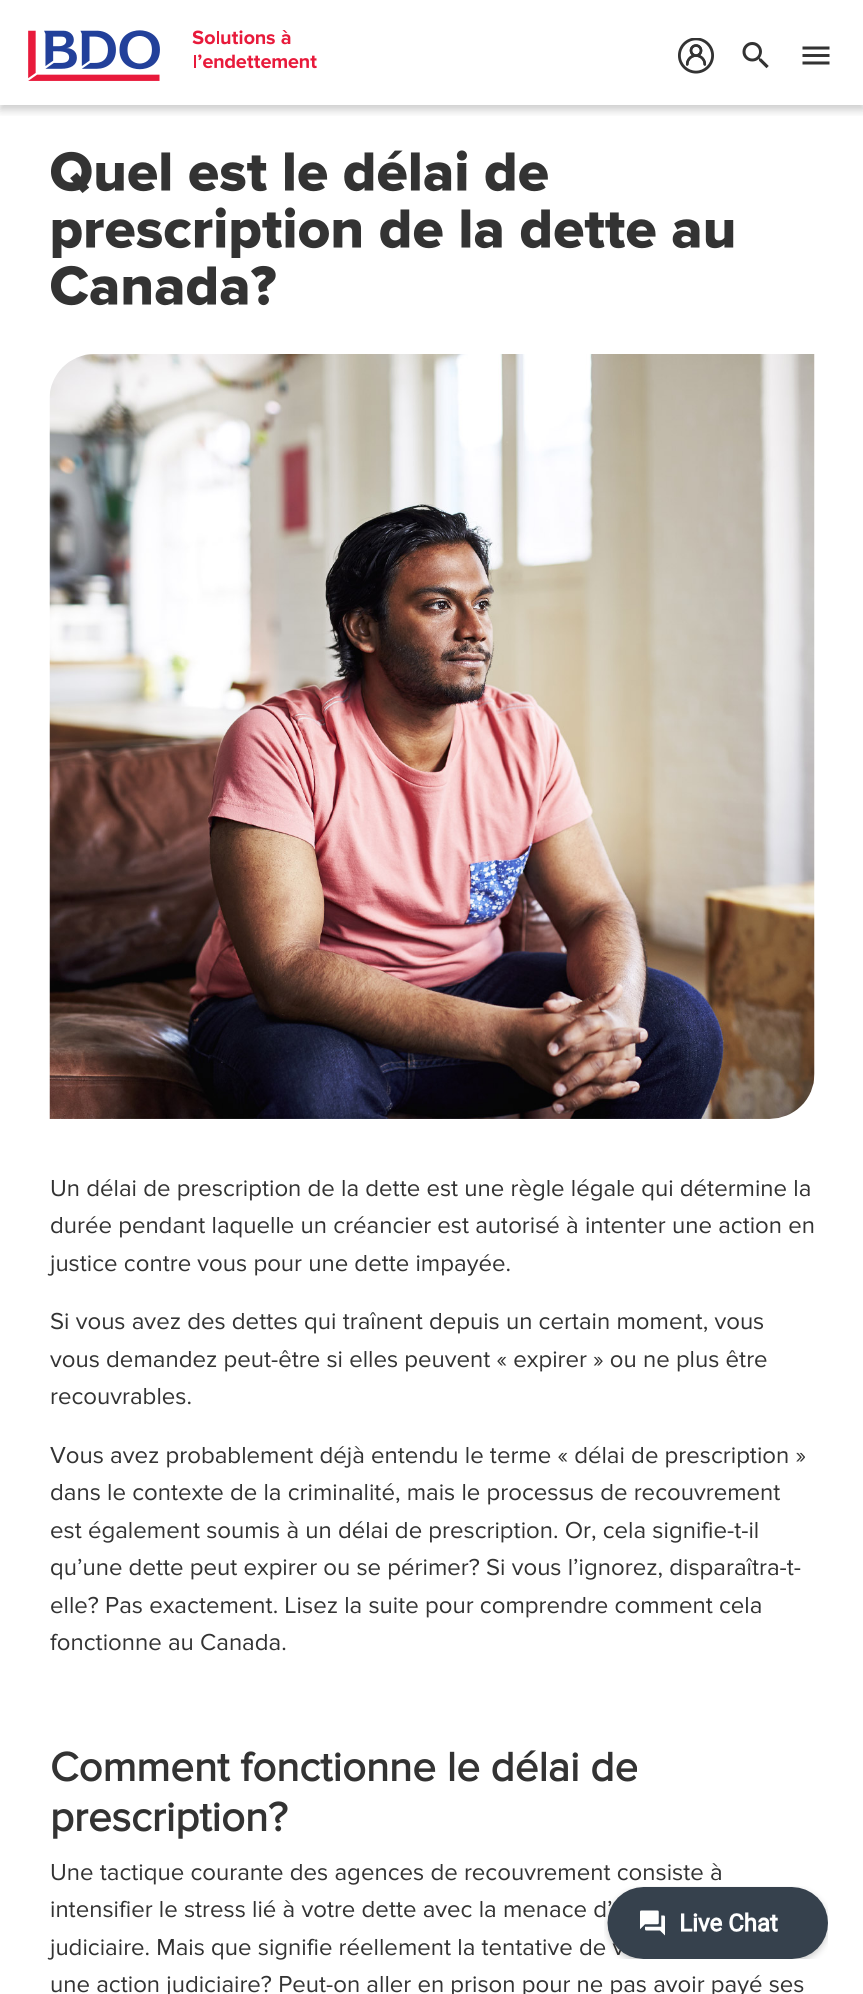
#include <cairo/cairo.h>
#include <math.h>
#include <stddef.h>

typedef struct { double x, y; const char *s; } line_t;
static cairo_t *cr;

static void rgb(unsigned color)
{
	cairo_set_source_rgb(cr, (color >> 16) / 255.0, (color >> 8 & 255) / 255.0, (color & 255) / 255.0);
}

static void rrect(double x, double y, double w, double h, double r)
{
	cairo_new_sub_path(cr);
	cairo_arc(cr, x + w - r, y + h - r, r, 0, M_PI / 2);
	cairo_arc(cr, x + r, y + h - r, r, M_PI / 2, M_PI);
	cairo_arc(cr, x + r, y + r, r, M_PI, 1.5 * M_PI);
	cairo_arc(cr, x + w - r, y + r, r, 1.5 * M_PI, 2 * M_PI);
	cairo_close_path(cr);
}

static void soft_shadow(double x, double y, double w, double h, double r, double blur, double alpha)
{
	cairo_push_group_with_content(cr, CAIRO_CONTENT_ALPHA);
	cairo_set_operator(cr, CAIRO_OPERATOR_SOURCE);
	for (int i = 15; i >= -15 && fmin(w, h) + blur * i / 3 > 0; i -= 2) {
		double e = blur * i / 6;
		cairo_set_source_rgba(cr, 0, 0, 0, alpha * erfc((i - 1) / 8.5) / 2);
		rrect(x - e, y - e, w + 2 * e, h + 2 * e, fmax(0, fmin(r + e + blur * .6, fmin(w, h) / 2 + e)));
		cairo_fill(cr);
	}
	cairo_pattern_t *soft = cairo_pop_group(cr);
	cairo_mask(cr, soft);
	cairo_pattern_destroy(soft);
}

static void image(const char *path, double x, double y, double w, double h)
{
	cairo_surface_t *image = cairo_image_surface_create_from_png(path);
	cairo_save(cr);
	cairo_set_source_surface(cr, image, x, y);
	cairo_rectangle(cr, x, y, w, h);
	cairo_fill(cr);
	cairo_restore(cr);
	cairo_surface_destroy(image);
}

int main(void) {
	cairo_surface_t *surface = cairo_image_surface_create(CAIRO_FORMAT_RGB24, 863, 1994);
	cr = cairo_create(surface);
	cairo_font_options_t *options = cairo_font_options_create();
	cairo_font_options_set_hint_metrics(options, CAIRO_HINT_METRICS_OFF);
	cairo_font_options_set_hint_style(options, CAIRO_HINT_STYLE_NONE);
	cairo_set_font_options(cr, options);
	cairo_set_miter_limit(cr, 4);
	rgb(0xffffff);
	cairo_paint(cr);
	cairo_save(cr);
	cairo_rectangle(cr, 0, 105, 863, 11);
	cairo_clip(cr);
	rgb(0x000000);
	soft_shadow(0, 5, 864, 105, 0, 4.5, 0.2);
	cairo_restore(cr);
	image("img/1.png", 28, 30, 289, 51);
	image("img/2.png", 678, 38, 36, 36);
	image("img/3.png", 742, 42, 27, 27);
	image("img/4.png", 802, 46, 28, 19);
	image("img/5.png", 51, 150, 497, 43);
	image("img/6.png", 52, 207, 682, 51);
	image("img/7.png", 51, 265, 225, 41);
	image("img/8.png", 49, 354, 766, 765);
	cairo_select_font_face(cr, "Proxima Nova", CAIRO_FONT_SLANT_NORMAL, CAIRO_FONT_WEIGHT_NORMAL);
	cairo_set_font_size(cr, 24);
	rgb(0x333333);
	{
		static const line_t items[] = {
			{50, 1196, "Un délai de prescription de la dette est une règle légale qui détermine la"},
			{50, 1233, "durée pendant laquelle un créancier est autorisé à intenter une action en"},
			{50, 1271, "justice contre vous pour une dette impayée."},
			{50, 1329, "Si vous avez des dettes qui traînent depuis un certain moment, vous"},
			{50, 1367, "vous demandez peut-être si elles peuvent « expirer » ou ne plus être"},
			{50, 1404, "recouvrables."},
			{50, 1463, "Vous avez probablement déjà entendu le terme « délai de prescription »"},
			{50, 1500, "dans le contexte de la criminalité, mais le processus de recouvrement"},
			{50, 1538, "est également soumis à un délai de prescription. Or, cela signifie-t-il"},
			{50, 1575, "qu’une dette peut expirer ou se périmer? Si vous l’ignorez, disparaîtra-t-"},
			{50, 1613, "elle? Pas exactement. Lisez la suite pour comprendre comment cela"},
			{50, 1650, "fonctionne au Canada."},
		};
		for (size_t i = 0; i < sizeof items / sizeof *items; i++) {
			cairo_move_to(cr, items[i].x, items[i].y);
			cairo_show_text(cr, items[i].s);
		}
	}
	cairo_select_font_face(cr, "Proxima Nova", CAIRO_FONT_SLANT_NORMAL, CAIRO_FONT_WEIGHT_BOLD);
	cairo_set_font_size(cr, 42);
	cairo_move_to(cr, 50, 1781);
	cairo_show_text(cr, "Comment fonctionne le délai de");
	cairo_move_to(cr, 50, 1831);
	cairo_show_text(cr, "prescription?");
	cairo_select_font_face(cr, "Proxima Nova", CAIRO_FONT_SLANT_NORMAL, CAIRO_FONT_WEIGHT_NORMAL);
	cairo_set_font_size(cr, 24);
	{
		static const line_t items[] = {
			{50, 1880, "Une tactique courante des agences de recouvrement consiste à"},
			{50, 1917, "intensifier le stress lié à votre dette avec la menace d’"},
			{50, 1955, "judiciaire. Mais que signifie réellement la tentative de v"},
			{50, 1992, "une action judiciaire? Peut-on aller en prison pour ne pas avoir payé ses"},
		};
		for (size_t i = 0; i < sizeof items / sizeof *items; i++) {
			cairo_move_to(cr, items[i].x, items[i].y);
			cairo_show_text(cr, items[i].s);
		}
	}
	image("img/9.png", 604, 1886, 224, 73);
	cairo_surface_write_to_png(surface, "page.png");
	cairo_font_options_destroy(options);
	cairo_destroy(cr);
	cairo_surface_destroy(surface);
	return 0;
}
